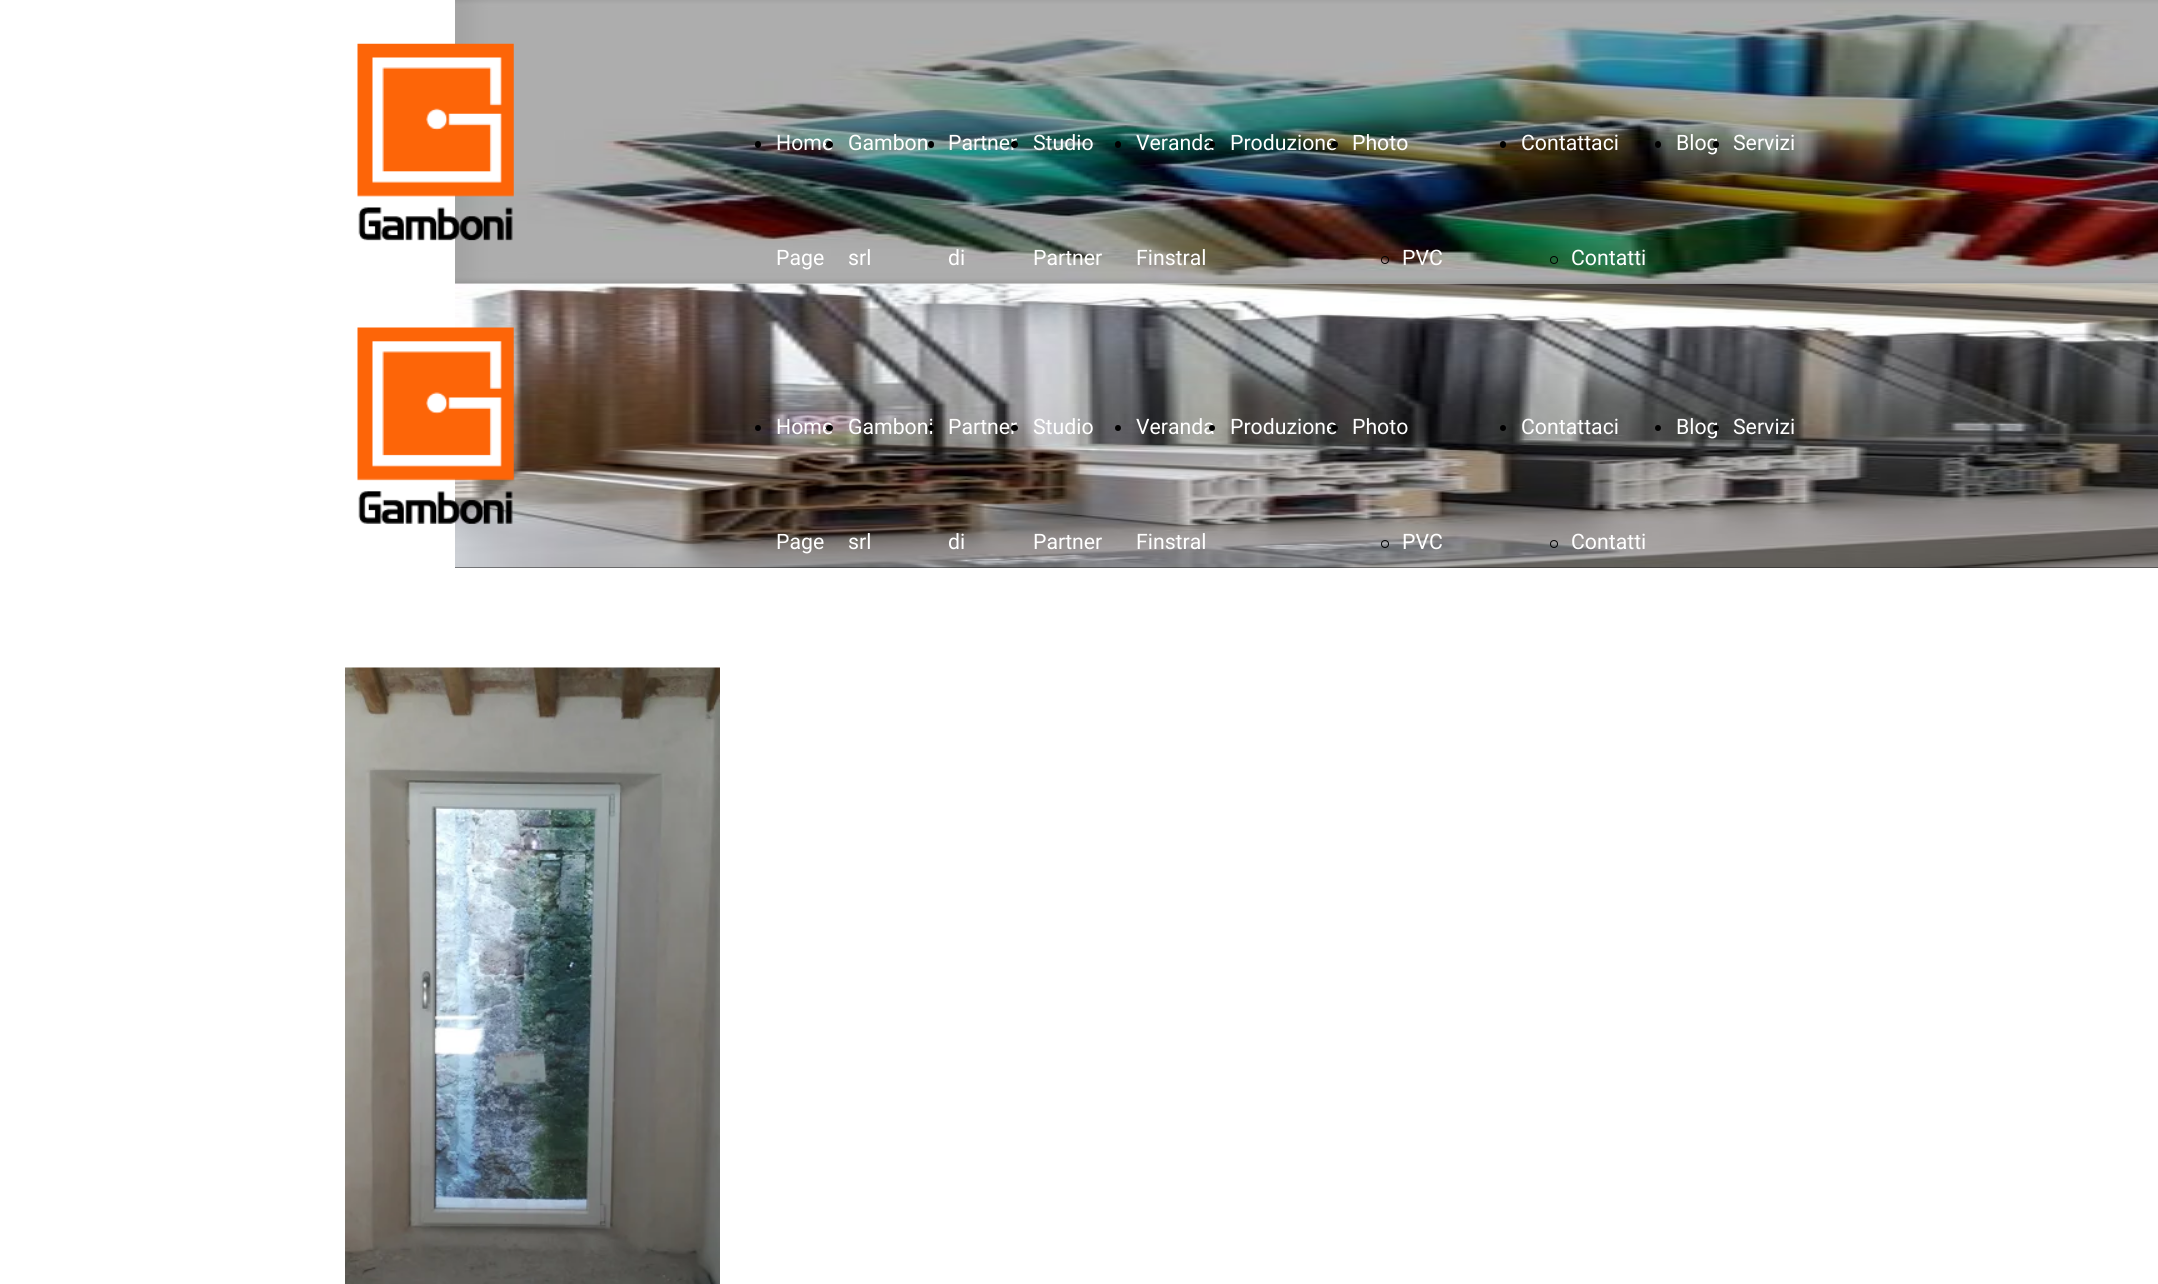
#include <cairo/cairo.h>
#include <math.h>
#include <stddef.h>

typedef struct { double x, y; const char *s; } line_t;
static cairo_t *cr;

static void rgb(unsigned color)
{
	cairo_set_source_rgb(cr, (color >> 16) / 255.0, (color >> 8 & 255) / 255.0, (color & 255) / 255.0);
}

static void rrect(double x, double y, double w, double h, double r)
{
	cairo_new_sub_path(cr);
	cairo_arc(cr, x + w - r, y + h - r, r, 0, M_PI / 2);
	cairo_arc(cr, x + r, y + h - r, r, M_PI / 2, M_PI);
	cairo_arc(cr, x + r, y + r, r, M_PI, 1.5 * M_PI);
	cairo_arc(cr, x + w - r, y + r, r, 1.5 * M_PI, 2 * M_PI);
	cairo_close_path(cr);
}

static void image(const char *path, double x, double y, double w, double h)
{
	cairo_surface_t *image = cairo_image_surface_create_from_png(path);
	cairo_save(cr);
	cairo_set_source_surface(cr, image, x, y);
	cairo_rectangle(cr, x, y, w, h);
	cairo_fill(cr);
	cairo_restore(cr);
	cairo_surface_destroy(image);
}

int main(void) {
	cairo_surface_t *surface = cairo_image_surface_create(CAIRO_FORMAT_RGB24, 2158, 1284);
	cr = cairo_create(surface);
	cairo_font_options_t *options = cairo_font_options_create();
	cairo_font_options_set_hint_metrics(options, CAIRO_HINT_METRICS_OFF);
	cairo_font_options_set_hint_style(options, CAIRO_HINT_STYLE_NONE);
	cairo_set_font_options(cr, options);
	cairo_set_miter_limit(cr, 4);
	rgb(0xffffff);
	cairo_paint(cr);
	image("img/2.png", 455, 0, 1703, 284);
	image("img/1.png", 357, 43, 157, 198);
	rgb(0x000000);
	rrect(755, 141, 6, 7, 3);
	cairo_fill(cr);
	rrect(928, 141, 6, 7, 3);
	cairo_fill(cr);
	rrect(1115, 141, 6, 7, 3);
	cairo_fill(cr);
	cairo_arc(cr, 1385, 260, 3.5, 0, 2 * M_PI);
	cairo_set_line_width(cr, 1);
	cairo_stroke(cr);
	rrect(1500, 141, 6, 7, 3);
	cairo_fill(cr);
	cairo_arc(cr, 1554, 260, 3.5, 0, 2 * M_PI);
	cairo_stroke(cr);
	rrect(1655, 141, 6, 7, 3);
	cairo_fill(cr);
	rgb(0x212121);
	cairo_rectangle(cr, 455, 567, 1703, 1);
	cairo_fill(cr);
	image("img/4.png", 455, 283, 1703, 285);
	image("img/3.png", 357, 327, 157, 197);
	rgb(0x000000);
	cairo_arc(cr, 758, 428, 3, 0, 2 * M_PI);
	cairo_fill(cr);
	cairo_arc(cr, 1118, 428, 3, 0, 2 * M_PI);
	cairo_fill(cr);
	cairo_arc(cr, 1385, 544, 3.5, 0, 2 * M_PI);
	cairo_stroke(cr);
	cairo_arc(cr, 1503, 428, 3, 0, 2 * M_PI);
	cairo_fill(cr);
	cairo_arc(cr, 1554, 544, 3.5, 0, 2 * M_PI);
	cairo_stroke(cr);
	cairo_arc(cr, 1658, 428, 3, 0, 2 * M_PI);
	cairo_fill(cr);
	image("img/5.png", 345, 667, 375, 617);
	cairo_select_font_face(cr, "Roboto", CAIRO_FONT_SLANT_NORMAL, CAIRO_FONT_WEIGHT_NORMAL);
	cairo_set_font_size(cr, 21.25);
	rgb(0xffffff);
	cairo_move_to(cr, 776, 150);
	cairo_show_text(cr, "Home");
	cairo_move_to(cr, 776, 265);
	cairo_show_text(cr, "Page");
	rgb(0x000000);
	cairo_new_path(cr);
	cairo_arc(cr, 829.5, 144.5, 3.5, 0, 2 * M_PI);
	cairo_fill(cr);
	rgb(0xffffff);
	{
		static const line_t items[] = {
			{848, 150, "Gambon"},
			{848, 265, "srl"},
			{948, 150, "Partner"},
			{948, 265, "di"},
		};
		for (size_t i = 0; i < sizeof items / sizeof *items; i++) {
			cairo_move_to(cr, items[i].x, items[i].y);
			cairo_show_text(cr, items[i].s);
		}
	}
	rgb(0x000000);
	cairo_new_path(cr);
	cairo_arc(cr, 1014.5, 144.5, 3.5, 0, 2 * M_PI);
	cairo_fill(cr);
	rgb(0xffffff);
	{
		static const line_t items[] = {
			{1033, 150, "Studio"},
			{1033, 265, "Partner"},
			{1136, 150, "Veranda"},
			{1136, 265, "Finstral"},
		};
		for (size_t i = 0; i < sizeof items / sizeof *items; i++) {
			cairo_move_to(cr, items[i].x, items[i].y);
			cairo_show_text(cr, items[i].s);
		}
	}
	rgb(0x000000);
	rrect(1209, 141, 6, 7, 3);
	cairo_fill(cr);
	rgb(0xffffff);
	cairo_move_to(cr, 1230, 150);
	cairo_show_text(cr, "Produzione");
	rgb(0x000000);
	cairo_new_path(cr);
	cairo_arc(cr, 1334.5, 144.5, 3.5, 0, 2 * M_PI);
	cairo_fill(cr);
	rgb(0xffffff);
	{
		static const line_t items[] = {
			{1352, 150, "Photo"},
			{1402, 265, "PVC"},
			{1521, 150, "Contattaci"},
			{1571, 265, "Contatti"},
			{1676, 150, "Blog"},
		};
		for (size_t i = 0; i < sizeof items / sizeof *items; i++) {
			cairo_move_to(cr, items[i].x, items[i].y);
			cairo_show_text(cr, items[i].s);
		}
	}
	rgb(0x000000);
	rrect(1713, 141, 6, 7, 3);
	cairo_fill(cr);
	rgb(0xffffff);
	{
		static const line_t items[] = {
			{1733, 150, "Servizi"},
			{776, 434, "Home"},
			{776, 549, "Page"},
		};
		for (size_t i = 0; i < sizeof items / sizeof *items; i++) {
			cairo_move_to(cr, items[i].x, items[i].y);
			cairo_show_text(cr, items[i].s);
		}
	}
	rgb(0x000000);
	rrect(826, 425, 7, 6, 3);
	cairo_fill(cr);
	rgb(0xffffff);
	cairo_move_to(cr, 848, 434);
	cairo_show_text(cr, "Gamboni");
	cairo_move_to(cr, 848, 549);
	cairo_show_text(cr, "srl");
	rgb(0x000000);
	cairo_new_path(cr);
	cairo_arc(cr, 931, 428, 3, 0, 2 * M_PI);
	cairo_fill(cr);
	rgb(0xffffff);
	cairo_move_to(cr, 948, 434);
	cairo_show_text(cr, "Partner");
	cairo_move_to(cr, 948, 549);
	cairo_show_text(cr, "di");
	rgb(0x000000);
	rrect(1011, 425, 7, 6, 3);
	cairo_fill(cr);
	rgb(0xffffff);
	{
		static const line_t items[] = {
			{1033, 434, "Studio"},
			{1033, 549, "Partner"},
			{1136, 434, "Veranda"},
			{1136, 549, "Finstral"},
		};
		for (size_t i = 0; i < sizeof items / sizeof *items; i++) {
			cairo_move_to(cr, items[i].x, items[i].y);
			cairo_show_text(cr, items[i].s);
		}
	}
	rgb(0x000000);
	cairo_new_path(cr);
	cairo_arc(cr, 1212, 428, 3, 0, 2 * M_PI);
	cairo_fill(cr);
	rgb(0xffffff);
	cairo_move_to(cr, 1230, 434);
	cairo_show_text(cr, "Produzione");
	rgb(0x000000);
	rrect(1331, 425, 7, 6, 3);
	cairo_fill(cr);
	rgb(0xffffff);
	{
		static const line_t items[] = {
			{1352, 434, "Photo"},
			{1402, 549, "PVC"},
			{1521, 434, "Contattaci"},
			{1571, 549, "Contatti"},
			{1676, 434, "Blog"},
		};
		for (size_t i = 0; i < sizeof items / sizeof *items; i++) {
			cairo_move_to(cr, items[i].x, items[i].y);
			cairo_show_text(cr, items[i].s);
		}
	}
	rgb(0x000000);
	cairo_new_path(cr);
	cairo_arc(cr, 1716, 428, 3, 0, 2 * M_PI);
	cairo_fill(cr);
	rgb(0xffffff);
	cairo_move_to(cr, 1733, 434);
	cairo_show_text(cr, "Servizi");
	cairo_surface_write_to_png(surface, "page.png");
	cairo_font_options_destroy(options);
	cairo_destroy(cr);
	cairo_surface_destroy(surface);
	return 0;
}
